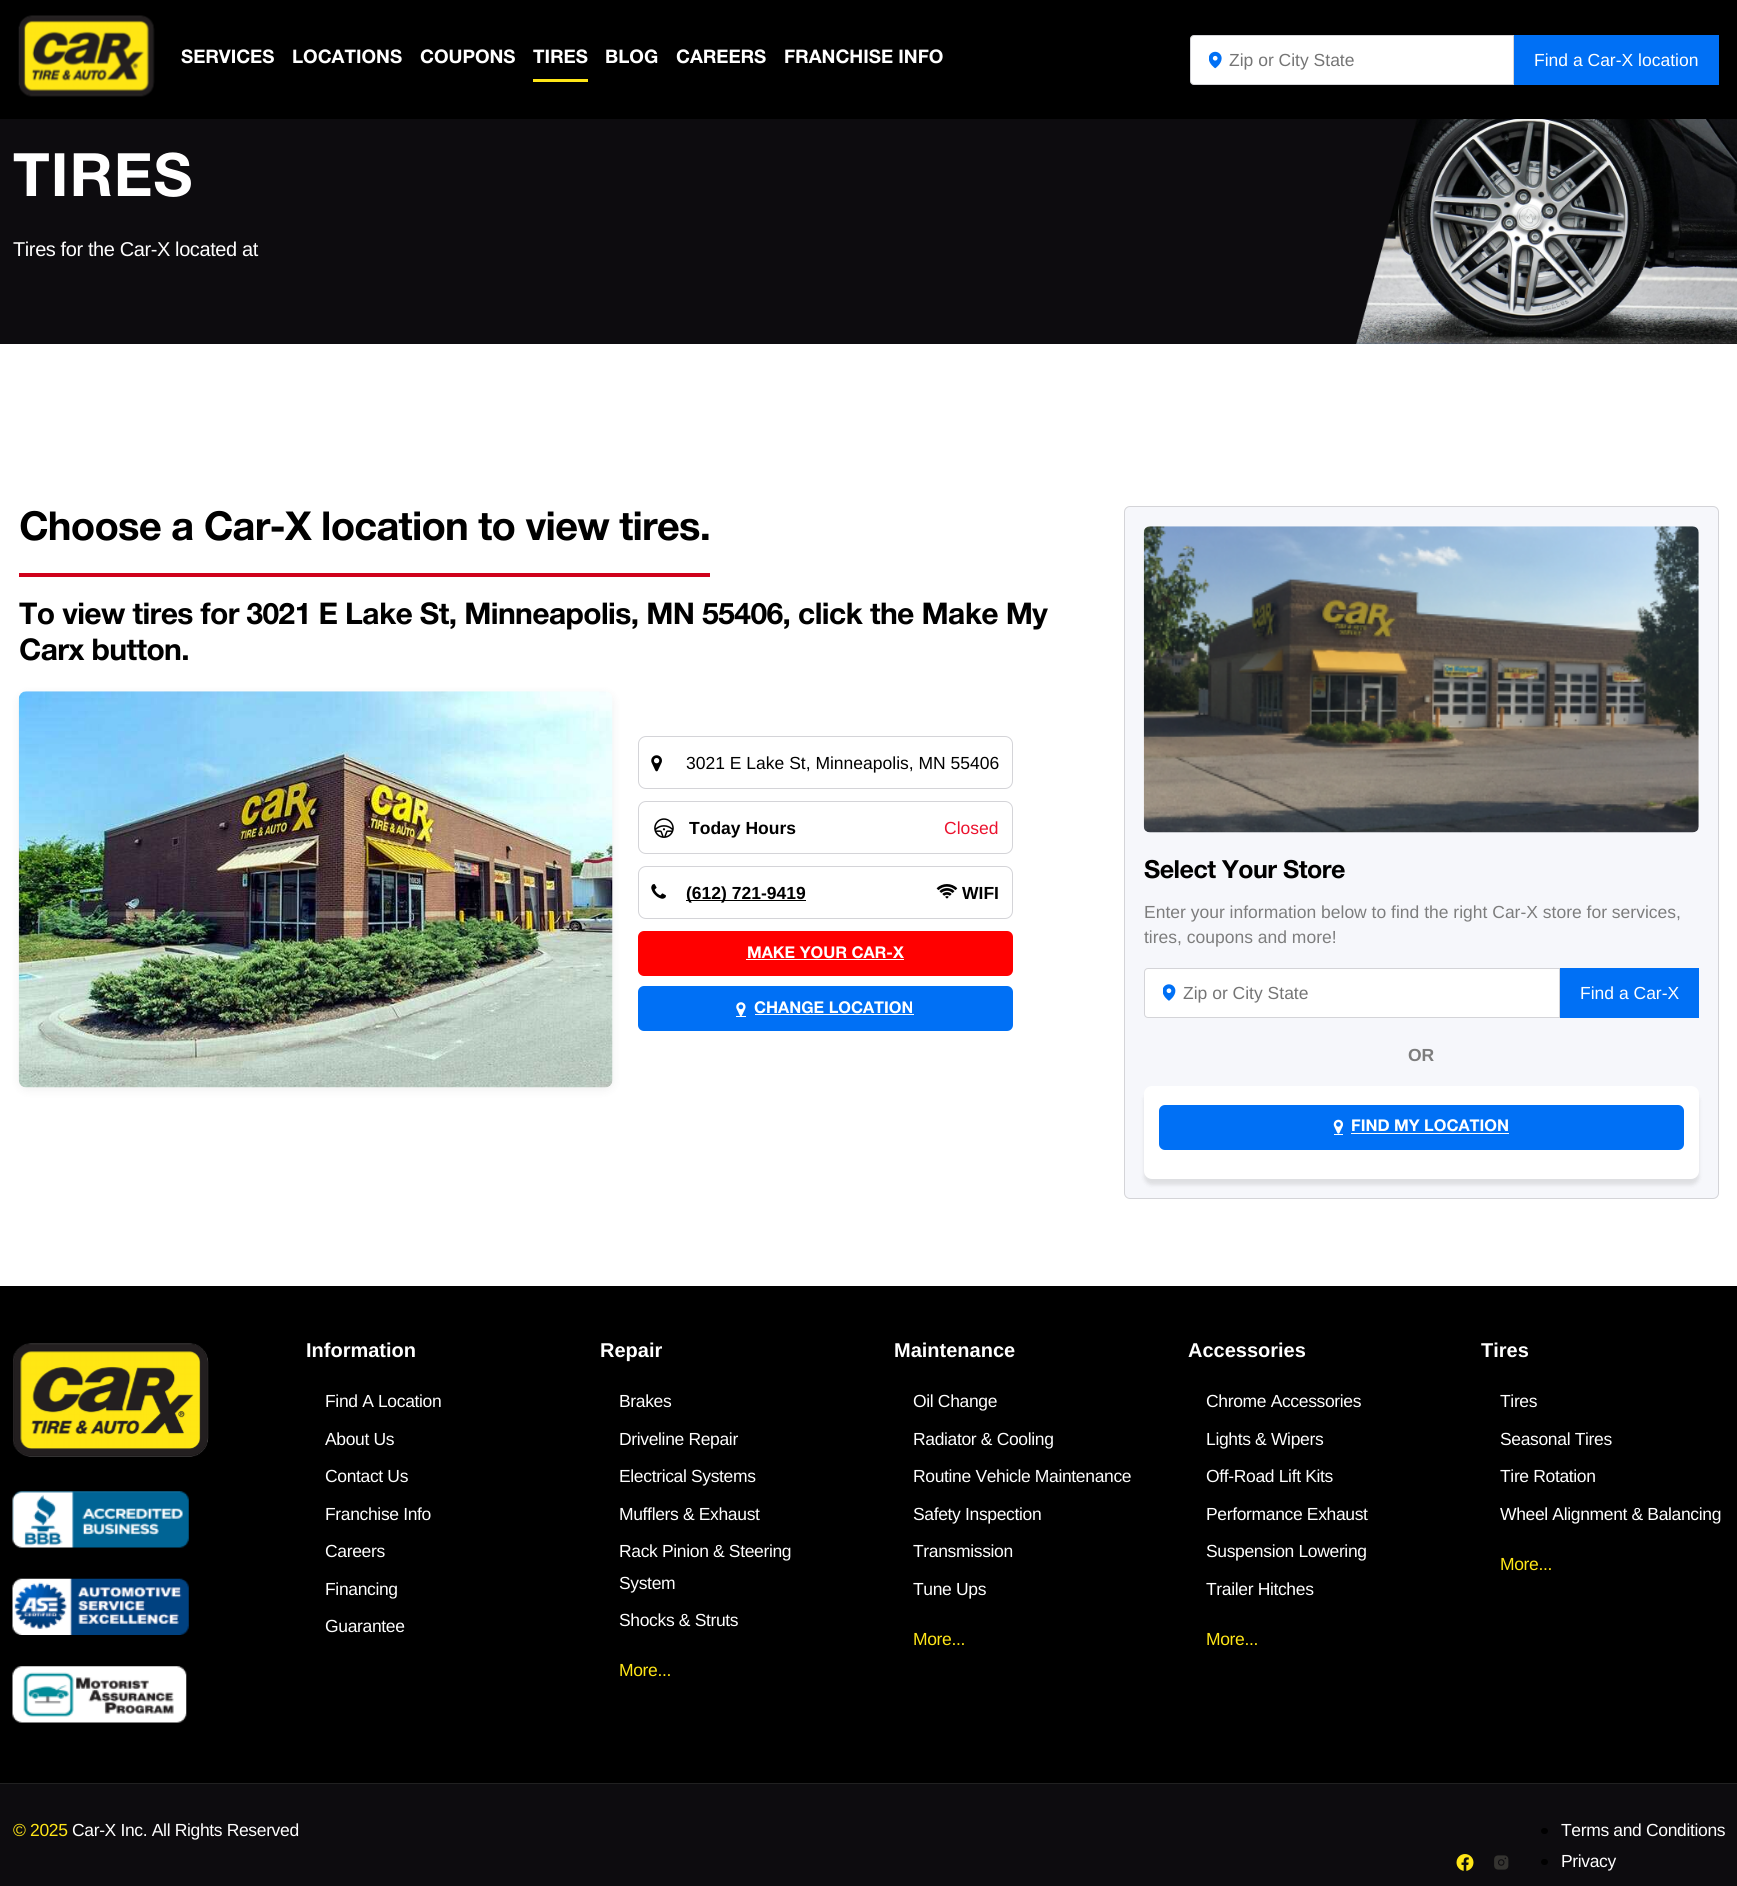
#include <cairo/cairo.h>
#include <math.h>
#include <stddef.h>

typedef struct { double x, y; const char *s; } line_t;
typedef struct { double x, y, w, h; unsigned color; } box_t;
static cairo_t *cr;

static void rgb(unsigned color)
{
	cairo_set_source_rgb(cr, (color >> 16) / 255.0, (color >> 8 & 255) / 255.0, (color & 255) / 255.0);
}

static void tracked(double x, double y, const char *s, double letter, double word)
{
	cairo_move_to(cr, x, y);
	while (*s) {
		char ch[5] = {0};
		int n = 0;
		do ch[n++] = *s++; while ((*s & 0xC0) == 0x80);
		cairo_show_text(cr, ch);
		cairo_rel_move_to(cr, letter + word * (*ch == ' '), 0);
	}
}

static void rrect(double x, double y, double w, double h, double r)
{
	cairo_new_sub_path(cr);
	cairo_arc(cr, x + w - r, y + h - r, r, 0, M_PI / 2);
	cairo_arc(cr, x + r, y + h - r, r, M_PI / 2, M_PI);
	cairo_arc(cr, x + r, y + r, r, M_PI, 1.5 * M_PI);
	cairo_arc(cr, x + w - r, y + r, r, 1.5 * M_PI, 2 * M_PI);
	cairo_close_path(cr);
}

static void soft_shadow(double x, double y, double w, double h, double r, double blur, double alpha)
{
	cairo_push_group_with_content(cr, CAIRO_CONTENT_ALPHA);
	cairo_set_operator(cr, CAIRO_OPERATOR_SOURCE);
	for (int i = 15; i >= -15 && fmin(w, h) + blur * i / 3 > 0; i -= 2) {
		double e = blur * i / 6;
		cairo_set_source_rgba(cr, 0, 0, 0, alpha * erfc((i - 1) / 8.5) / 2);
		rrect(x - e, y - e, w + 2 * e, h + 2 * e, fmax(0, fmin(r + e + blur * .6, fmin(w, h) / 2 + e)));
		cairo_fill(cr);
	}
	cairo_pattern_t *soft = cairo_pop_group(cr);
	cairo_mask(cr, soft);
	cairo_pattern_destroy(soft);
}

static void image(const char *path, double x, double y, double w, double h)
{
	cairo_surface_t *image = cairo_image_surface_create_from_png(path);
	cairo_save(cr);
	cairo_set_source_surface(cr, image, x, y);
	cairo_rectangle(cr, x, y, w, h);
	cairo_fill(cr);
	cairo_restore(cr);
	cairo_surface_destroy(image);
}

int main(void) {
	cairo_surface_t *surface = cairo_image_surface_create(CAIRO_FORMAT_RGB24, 1737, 1886);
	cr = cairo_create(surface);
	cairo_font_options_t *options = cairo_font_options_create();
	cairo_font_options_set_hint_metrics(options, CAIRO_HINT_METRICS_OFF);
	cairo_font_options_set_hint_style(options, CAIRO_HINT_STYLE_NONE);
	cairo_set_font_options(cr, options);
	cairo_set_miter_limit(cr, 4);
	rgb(0xffffff);
	cairo_paint(cr);
	rgb(0x000000);
	cairo_rectangle(cr, 0, 0, 1737, 119);
	cairo_fill(cr);
	image("img/1.png", 18, 15, 137, 82);
	rgb(0xffe617);
	cairo_rectangle(cr, 533, 79, 55, 3);
	cairo_fill(cr);
	rgb(0xffffff);
	cairo_new_path(cr);
	cairo_move_to(cr, 1194, 35.5);
	cairo_line_to(cr, 1513.5, 35.5);
	cairo_line_to(cr, 1513.5, 84.5);
	cairo_line_to(cr, 1194, 84.5);
	cairo_curve_to(cr, 1192, 84.5, 1190.5, 83, 1190.5, 81);
	cairo_line_to(cr, 1190.5, 39);
	cairo_curve_to(cr, 1190.5, 37, 1192, 35.5, 1194, 35.5);
	cairo_close_path(cr);
	cairo_fill_preserve(cr);
	rgb(0xd4d4d8);
	cairo_set_line_width(cr, 1);
	cairo_stroke(cr);
	image("img/2.png", 1209, 51, 13, 18);
	rgb(0x0070f5);
	cairo_rectangle(cr, 1514, 35, 205, 50);
	cairo_fill(cr);
	rgb(0x0d0c0f);
	cairo_rectangle(cr, 0, 119, 1737, 225);
	cairo_fill(cr);
	image("img/3.png", 1356, 119, 381, 225);
	rgb(0xd0011b);
	cairo_rectangle(cr, 19, 573, 691, 4);
	cairo_fill(cr);
	rgb(0x000000);
	soft_shadow(19, 694, 594, 396, 8, 5, 0.06);
	image("img/4.png", 18, 691, 595, 397);
	rrect(638.5, 736.5, 374, 52, 7.5);
	rgb(0xd4d4d8);
	cairo_stroke(cr);
	image("img/5.png", 651, 755, 11, 17);
	rrect(638.5, 801.5, 374, 52, 7.5);
	cairo_stroke(cr);
	image("img/6.png", 654, 818, 20, 20);
	rrect(638.5, 866.5, 374, 52, 7.5);
	cairo_stroke(cr);
	image("img/7.png", 651, 884, 15, 15);
	rgb(0x000000);
	cairo_rectangle(cr, 686, 900, 120, 1);
	cairo_fill(cr);
	image("img/8.png", 936, 884, 22, 15);
	rgb(0xff0000);
	rrect(638, 931, 375, 45, 6);
	cairo_fill(cr);
	rgb(0xffffff);
	cairo_rectangle(cr, 746, 959, 158, 1);
	cairo_fill(cr);
	rgb(0x0070f5);
	rrect(638, 986, 375, 45, 6);
	cairo_fill(cr);
	image("img/9.png", 736, 1002, 10, 14);
	rgb(0xffffff);
	cairo_rectangle(cr, 736, 1016, 10, 1);
	cairo_fill(cr);
	cairo_rectangle(cr, 755, 1014, 159, 1);
	cairo_fill(cr);
	rgb(0xf6f7fb);
	rrect(1124.5, 506.5, 594, 692, 5.5);
	cairo_fill_preserve(cr);
	rgb(0xd4d4d8);
	cairo_stroke(cr);
	image("img/10.png", 1143, 526, 556, 307);
	rgb(0xffffff);
	cairo_new_path(cr);
	cairo_move_to(cr, 1148, 968.5);
	cairo_line_to(cr, 1559.5, 968.5);
	cairo_line_to(cr, 1559.5, 1017.5);
	cairo_line_to(cr, 1148, 1017.5);
	cairo_curve_to(cr, 1146, 1017.5, 1144.5, 1016, 1144.5, 1014);
	cairo_line_to(cr, 1144.5, 972);
	cairo_curve_to(cr, 1144.5, 970, 1146, 968.5, 1148, 968.5);
	cairo_close_path(cr);
	cairo_fill_preserve(cr);
	rgb(0xd4d4d8);
	cairo_stroke(cr);
	image("img/11.png", 1163, 984, 13, 17);
	rgb(0x0070f5);
	cairo_rectangle(cr, 1560, 968, 139, 50);
	cairo_fill(cr);
	rgb(0x000000);
	soft_shadow(1144, 1093, 555, 92, 8, 2, 0.1);
	rgb(0xffffff);
	rrect(1144, 1086, 555, 93, 8);
	cairo_fill(cr);
	rgb(0x0070f5);
	rrect(1159, 1105, 525, 45, 6);
	cairo_fill(cr);
	image("img/12.png", 1333, 1119, 10, 15);
	{
		static const box_t items[] = {
			{1334, 1134, 9, 1, 0xffffff},
			{1351, 1133, 158, 1, 0xffffff},
			{0, 1286, 1737, 497, 0x000000},
		};
		for (size_t i = 0; i < sizeof items / sizeof *items; i++) {
			rgb(items[i].color);
			cairo_rectangle(cr, items[i].x, items[i].y, items[i].w, items[i].h);
			cairo_fill(cr);
		}
	}
	image("img/13.png", 13, 1343, 196, 114);
	image("img/14.png", 12, 1491, 177, 57);
	image("img/15.png", 12, 1578, 177, 57);
	image("img/16.png", 12, 1666, 175, 57);
	rgb(0x0d0c0f);
	cairo_rectangle(cr, 0, 1784, 1737, 102);
	cairo_fill(cr);
	rgb(0x212121);
	cairo_rectangle(cr, 0, 1783, 1737, 1);
	cairo_fill(cr);
	image("img/17.png", 1456, 1854, 18, 17);
	image("img/18.png", 1494, 1855, 15, 15);
	rgb(0x000000);
	rrect(1541, 1828, 7, 6, 3);
	cairo_fill(cr);
	rrect(1541, 1859, 7, 6, 3);
	cairo_fill(cr);
	cairo_select_font_face(cr, "Helvetica Neue", CAIRO_FONT_SLANT_NORMAL, CAIRO_FONT_WEIGHT_BOLD);
	cairo_set_font_size(cr, 18.75);
	rgb(0xffffff);
	{
		static const line_t items[] = {
			{181, 63, "SERVICES"},
			{292, 63, "LOCATIONS"},
			{420, 63, "COUPONS"},
			{533, 63, "TIRES"},
			{605, 63, "BLOG"},
			{676, 63, "CAREERS"},
			{784, 63, "FRANCHISE INFO"},
		};
		for (size_t i = 0; i < sizeof items / sizeof *items; i++) {
			cairo_move_to(cr, items[i].x, items[i].y);
			cairo_show_text(cr, items[i].s);
		}
	}
	cairo_select_font_face(cr, "Liberation Sans", CAIRO_FONT_SLANT_NORMAL, CAIRO_FONT_WEIGHT_NORMAL);
	cairo_set_font_size(cr, 17.5);
	rgb(0x757575);
	cairo_move_to(cr, 1229, 66);
	cairo_show_text(cr, "Zip or City State");
	rgb(0xffffff);
	cairo_move_to(cr, 1534, 66);
	cairo_show_text(cr, "Find a Car-X location");
	cairo_select_font_face(cr, "Helvetica Neue", CAIRO_FONT_SLANT_NORMAL, CAIRO_FONT_WEIGHT_BOLD);
	cairo_set_font_size(cr, 60);
	tracked(13, 196, "TIRES", 1, 0);
	cairo_select_font_face(cr, "Liberation Sans", CAIRO_FONT_SLANT_NORMAL, CAIRO_FONT_WEIGHT_NORMAL);
	cairo_set_font_size(cr, 20);
	tracked(13, 256, "Tires for the Car-X located at", -0.4, 0);
	cairo_select_font_face(cr, "Helvetica Neue", CAIRO_FONT_SLANT_NORMAL, CAIRO_FONT_WEIGHT_BOLD);
	cairo_set_font_size(cr, 40);
	rgb(0x000000);
	tracked(19, 540, "Choose a Car-X location to view tires.", -0.8, 0);
	cairo_set_font_size(cr, 30);
	tracked(19, 624, "To view tires for 3021 E Lake St, Minneapolis, MN 55406, click the Make My", -0.6, 0);
	tracked(19, 660, "Carx button.", -0.6, 0);
	cairo_select_font_face(cr, "Liberation Sans", CAIRO_FONT_SLANT_NORMAL, CAIRO_FONT_WEIGHT_NORMAL);
	cairo_set_font_size(cr, 17.5);
	cairo_move_to(cr, 686, 769);
	cairo_show_text(cr, "3021 E Lake St, Minneapolis, MN 55406");
	cairo_select_font_face(cr, "Liberation Sans", CAIRO_FONT_SLANT_NORMAL, CAIRO_FONT_WEIGHT_BOLD);
	cairo_move_to(cr, 689, 834);
	cairo_show_text(cr, "Today Hours");
	cairo_select_font_face(cr, "Liberation Sans", CAIRO_FONT_SLANT_NORMAL, CAIRO_FONT_WEIGHT_NORMAL);
	rgb(0xeb122e);
	cairo_move_to(cr, 944, 834);
	cairo_show_text(cr, "Closed");
	cairo_select_font_face(cr, "Liberation Sans", CAIRO_FONT_SLANT_NORMAL, CAIRO_FONT_WEIGHT_BOLD);
	rgb(0x000000);
	cairo_move_to(cr, 686, 899);
	cairo_show_text(cr, "(612) 721-9419");
	cairo_move_to(cr, 962, 899);
	cairo_show_text(cr, "WIFI");
	cairo_select_font_face(cr, "Helvetica Neue", CAIRO_FONT_SLANT_NORMAL, CAIRO_FONT_WEIGHT_BOLD);
	cairo_set_font_size(cr, 16.25);
	rgb(0xffffff);
	cairo_move_to(cr, 747, 958);
	cairo_show_text(cr, "MAKE YOUR CAR-X");
	cairo_move_to(cr, 754, 1013);
	cairo_show_text(cr, "CHANGE LOCATION");
	cairo_set_font_size(cr, 25);
	rgb(0x000000);
	tracked(1144, 878, "Select Your Store", -0.5, 0);
	cairo_select_font_face(cr, "Liberation Sans", CAIRO_FONT_SLANT_NORMAL, CAIRO_FONT_WEIGHT_NORMAL);
	cairo_set_font_size(cr, 17.5);
	rgb(0x7d7d7d);
	cairo_move_to(cr, 1144, 918);
	cairo_show_text(cr, "Enter your information below to find the right Car-X store for services,");
	cairo_move_to(cr, 1144, 943);
	cairo_show_text(cr, "tires, coupons and more!");
	rgb(0x757575);
	cairo_move_to(cr, 1183, 999);
	cairo_show_text(cr, "Zip or City State");
	rgb(0xffffff);
	cairo_move_to(cr, 1580, 999);
	cairo_show_text(cr, "Find a Car-X");
	cairo_select_font_face(cr, "Liberation Sans", CAIRO_FONT_SLANT_NORMAL, CAIRO_FONT_WEIGHT_BOLD);
	rgb(0x7d7d7d);
	cairo_move_to(cr, 1408, 1061);
	cairo_show_text(cr, "OR");
	cairo_select_font_face(cr, "Helvetica Neue", CAIRO_FONT_SLANT_NORMAL, CAIRO_FONT_WEIGHT_BOLD);
	cairo_set_font_size(cr, 16.25);
	rgb(0xffffff);
	cairo_move_to(cr, 1351, 1131);
	cairo_show_text(cr, "FIND MY LOCATION");
	cairo_select_font_face(cr, "Liberation Sans", CAIRO_FONT_SLANT_NORMAL, CAIRO_FONT_WEIGHT_BOLD);
	cairo_set_font_size(cr, 20);
	cairo_move_to(cr, 306, 1357);
	cairo_show_text(cr, "Information");
	cairo_select_font_face(cr, "Liberation Sans", CAIRO_FONT_SLANT_NORMAL, CAIRO_FONT_WEIGHT_NORMAL);
	cairo_set_font_size(cr, 17.5);
	{
		static const line_t items[] = {
			{325, 1407, "Find A Location"},
			{325, 1445, "About Us"},
			{325, 1482, "Contact Us"},
			{325, 1520, "Franchise Info"},
			{325, 1557, "Careers"},
			{325, 1595, "Financing"},
			{325, 1632, "Guarantee"},
		};
		for (size_t i = 0; i < sizeof items / sizeof *items; i++) {
			tracked(items[i].x, items[i].y, items[i].s, -0.35, 0);
		}
	}
	cairo_select_font_face(cr, "Liberation Sans", CAIRO_FONT_SLANT_NORMAL, CAIRO_FONT_WEIGHT_BOLD);
	cairo_set_font_size(cr, 20);
	cairo_move_to(cr, 600, 1357);
	cairo_show_text(cr, "Repair");
	cairo_select_font_face(cr, "Liberation Sans", CAIRO_FONT_SLANT_NORMAL, CAIRO_FONT_WEIGHT_NORMAL);
	cairo_set_font_size(cr, 17.5);
	{
		static const line_t items[] = {
			{619, 1407, "Brakes"},
			{619, 1445, "Driveline Repair"},
			{619, 1482, "Electrical Systems"},
			{619, 1520, "Mufflers & Exhaust"},
			{619, 1557, "Rack Pinion & Steering"},
			{619, 1589, "System"},
			{619, 1626, "Shocks & Struts"},
		};
		for (size_t i = 0; i < sizeof items / sizeof *items; i++) {
			tracked(items[i].x, items[i].y, items[i].s, -0.35, 0);
		}
	}
	rgb(0xffe617);
	tracked(619, 1676, "More...", -0.35, 0);
	cairo_select_font_face(cr, "Liberation Sans", CAIRO_FONT_SLANT_NORMAL, CAIRO_FONT_WEIGHT_BOLD);
	cairo_set_font_size(cr, 20);
	rgb(0xffffff);
	cairo_move_to(cr, 894, 1357);
	cairo_show_text(cr, "Maintenance");
	cairo_select_font_face(cr, "Liberation Sans", CAIRO_FONT_SLANT_NORMAL, CAIRO_FONT_WEIGHT_NORMAL);
	cairo_set_font_size(cr, 17.5);
	{
		static const line_t items[] = {
			{913, 1407, "Oil Change"},
			{913, 1445, "Radiator & Cooling"},
			{913, 1482, "Routine Vehicle Maintenance"},
			{913, 1520, "Safety Inspection"},
			{913, 1557, "Transmission"},
			{913, 1595, "Tune Ups"},
		};
		for (size_t i = 0; i < sizeof items / sizeof *items; i++) {
			tracked(items[i].x, items[i].y, items[i].s, -0.35, 0);
		}
	}
	rgb(0xffe617);
	tracked(913, 1645, "More...", -0.35, 0);
	cairo_select_font_face(cr, "Liberation Sans", CAIRO_FONT_SLANT_NORMAL, CAIRO_FONT_WEIGHT_BOLD);
	cairo_set_font_size(cr, 20);
	rgb(0xffffff);
	cairo_move_to(cr, 1188, 1357);
	cairo_show_text(cr, "Accessories");
	cairo_select_font_face(cr, "Liberation Sans", CAIRO_FONT_SLANT_NORMAL, CAIRO_FONT_WEIGHT_NORMAL);
	cairo_set_font_size(cr, 17.5);
	{
		static const line_t items[] = {
			{1206, 1407, "Chrome Accessories"},
			{1206, 1445, "Lights & Wipers"},
			{1206, 1482, "Off-Road Lift Kits"},
			{1206, 1520, "Performance Exhaust"},
			{1206, 1557, "Suspension Lowering"},
			{1206, 1595, "Trailer Hitches"},
		};
		for (size_t i = 0; i < sizeof items / sizeof *items; i++) {
			tracked(items[i].x, items[i].y, items[i].s, -0.35, 0);
		}
	}
	rgb(0xffe617);
	tracked(1206, 1645, "More...", -0.35, 0);
	cairo_select_font_face(cr, "Liberation Sans", CAIRO_FONT_SLANT_NORMAL, CAIRO_FONT_WEIGHT_BOLD);
	cairo_set_font_size(cr, 20);
	rgb(0xffffff);
	cairo_move_to(cr, 1481, 1357);
	cairo_show_text(cr, "Tires");
	cairo_select_font_face(cr, "Liberation Sans", CAIRO_FONT_SLANT_NORMAL, CAIRO_FONT_WEIGHT_NORMAL);
	cairo_set_font_size(cr, 17.5);
	{
		static const line_t items[] = {
			{1500, 1407, "Tires"},
			{1500, 1445, "Seasonal Tires"},
			{1500, 1482, "Tire Rotation"},
			{1500, 1520, "Wheel Alignment & Balancing"},
		};
		for (size_t i = 0; i < sizeof items / sizeof *items; i++) {
			tracked(items[i].x, items[i].y, items[i].s, -0.35, 0);
		}
	}
	rgb(0xffe617);
	tracked(1500, 1570, "More...", -0.35, 0);
	tracked(13, 1836, "© 2025", -0.35, 0);
	rgb(0xffffff);
	{
		static const line_t items[] = {
			{72, 1836, "Car-X Inc. All Rights Reserved"},
			{1561, 1836, "Terms and Conditions"},
			{1561, 1867, "Privacy"},
		};
		for (size_t i = 0; i < sizeof items / sizeof *items; i++) {
			tracked(items[i].x, items[i].y, items[i].s, -0.35, 0);
		}
	}
	cairo_surface_write_to_png(surface, "page.png");
	cairo_font_options_destroy(options);
	cairo_destroy(cr);
	cairo_surface_destroy(surface);
	return 0;
}
